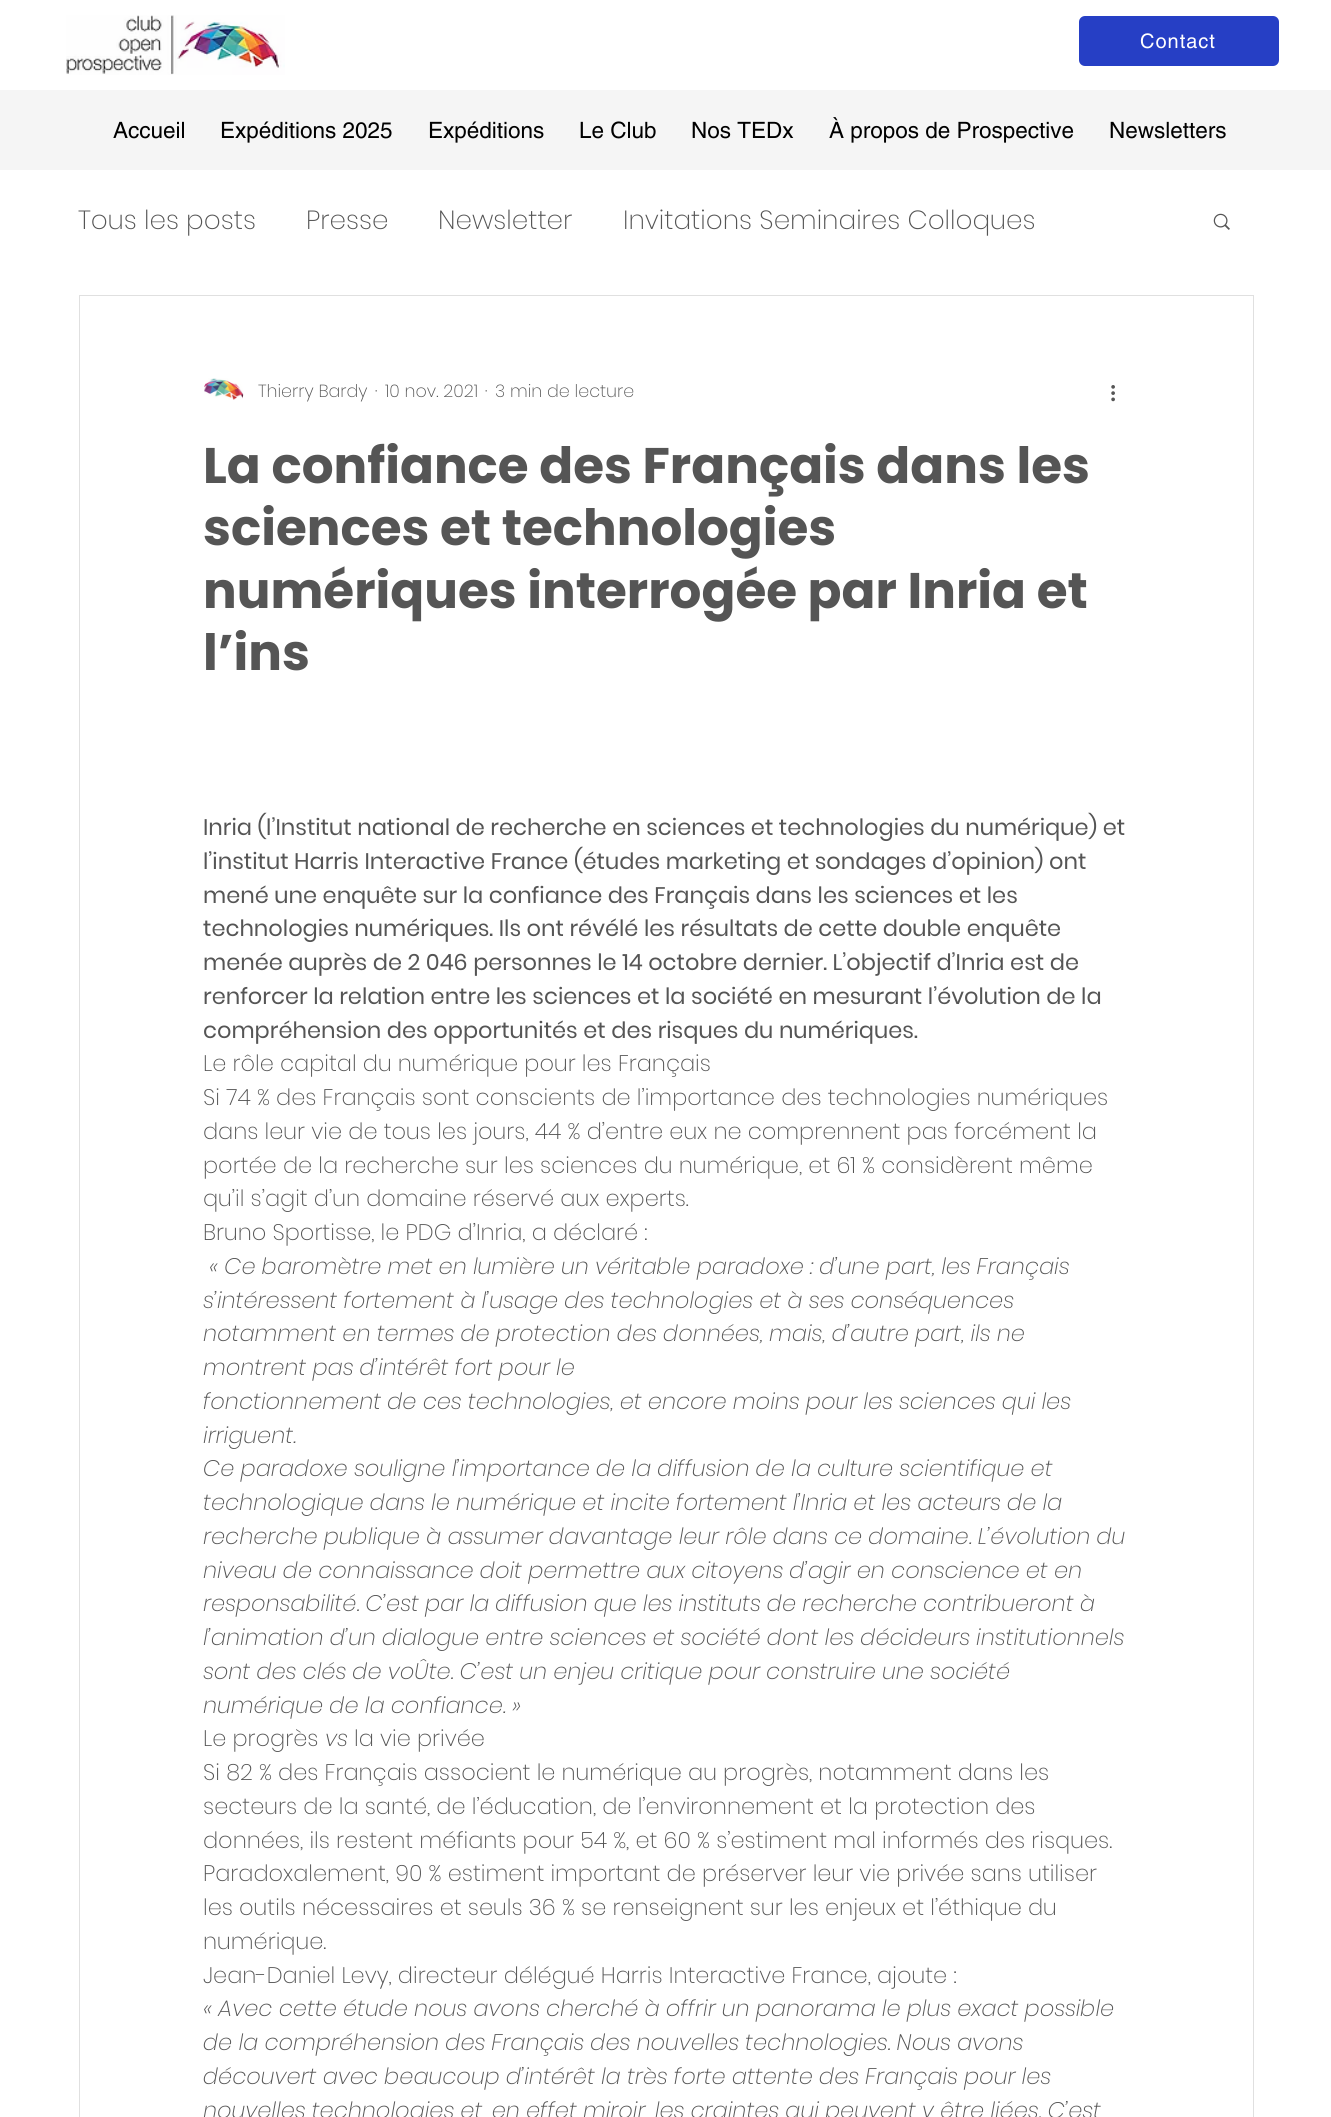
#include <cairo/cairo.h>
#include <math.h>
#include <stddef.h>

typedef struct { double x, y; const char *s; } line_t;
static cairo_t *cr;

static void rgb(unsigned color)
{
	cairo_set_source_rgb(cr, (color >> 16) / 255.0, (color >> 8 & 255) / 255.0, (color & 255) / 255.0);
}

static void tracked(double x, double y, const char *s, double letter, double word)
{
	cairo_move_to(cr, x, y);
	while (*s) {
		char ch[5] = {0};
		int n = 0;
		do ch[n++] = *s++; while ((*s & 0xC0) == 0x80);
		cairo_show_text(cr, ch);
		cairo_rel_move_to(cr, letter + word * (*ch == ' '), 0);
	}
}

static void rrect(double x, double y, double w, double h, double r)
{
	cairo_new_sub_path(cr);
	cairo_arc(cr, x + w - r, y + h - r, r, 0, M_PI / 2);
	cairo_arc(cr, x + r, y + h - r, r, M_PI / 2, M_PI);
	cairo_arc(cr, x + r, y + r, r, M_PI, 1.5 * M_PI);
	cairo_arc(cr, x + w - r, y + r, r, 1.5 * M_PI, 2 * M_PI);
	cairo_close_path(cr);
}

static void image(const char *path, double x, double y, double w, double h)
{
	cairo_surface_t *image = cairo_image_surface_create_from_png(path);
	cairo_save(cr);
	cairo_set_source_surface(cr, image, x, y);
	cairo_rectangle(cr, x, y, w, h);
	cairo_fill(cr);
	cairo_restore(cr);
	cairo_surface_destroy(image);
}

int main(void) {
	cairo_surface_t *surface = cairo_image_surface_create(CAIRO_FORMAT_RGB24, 1331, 2117);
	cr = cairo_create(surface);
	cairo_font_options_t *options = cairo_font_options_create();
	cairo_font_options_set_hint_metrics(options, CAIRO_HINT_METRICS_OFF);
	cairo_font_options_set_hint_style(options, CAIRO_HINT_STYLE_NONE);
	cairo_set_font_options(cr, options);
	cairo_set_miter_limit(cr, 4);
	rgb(0xffffff);
	cairo_paint(cr);
	image("img/1.png", 66, 15, 219, 60);
	rgb(0x263fc5);
	rrect(1079, 16, 200, 50, 6);
	cairo_fill(cr);
	rgb(0xf5f5f5);
	cairo_rectangle(cr, 0, 90, 1331, 80);
	cairo_fill(cr);
	image("img/2.png", 1213, 213, 17, 17);
	cairo_rectangle(cr, 79.5, 295.5, 1174, 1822);
	rgb(0xe0e0e0);
	cairo_set_line_width(cr, 1);
	cairo_stroke(cr);
	image("img/3.png", 204, 378, 40, 22);
	image("img/4.png", 1111, 385, 4, 17);
	cairo_select_font_face(cr, "helvetica", CAIRO_FONT_SLANT_NORMAL, CAIRO_FONT_WEIGHT_NORMAL);
	cairo_set_font_size(cr, 20);
	rgb(0xffffff);
	tracked(1140, 48, "Contact", 1, 0);
	cairo_set_font_size(cr, 22.5);
	rgb(0x000000);
	{
		static const line_t items[] = {
			{113, 138, "Accueil"},
			{220, 138, "Expéditions 2025"},
			{428, 138, "Expéditions"},
			{579, 138, "Le Club"},
			{691, 138, "Nos TEDx"},
			{829, 138, "À propos de Prospective"},
			{1109, 138, "Newsletters"},
		};
		for (size_t i = 0; i < sizeof items / sizeof *items; i++) {
			cairo_move_to(cr, items[i].x, items[i].y);
			cairo_show_text(cr, items[i].s);
		}
	}
	cairo_select_font_face(cr, "Poppins ExtraLight", CAIRO_FONT_SLANT_NORMAL, CAIRO_FONT_WEIGHT_NORMAL);
	cairo_set_font_size(cr, 26.25);
	rgb(0x555555);
	{
		static const line_t items[] = {
			{78, 229, "Tous les posts"},
			{306, 229, "Presse"},
			{438, 229, "Newsletter"},
			{623, 229, "Invitations Seminaires Colloques"},
		};
		for (size_t i = 0; i < sizeof items / sizeof *items; i++) {
			cairo_move_to(cr, items[i].x, items[i].y);
			cairo_show_text(cr, items[i].s);
		}
	}
	cairo_set_font_size(cr, 17.5);
	{
		static const line_t items[] = {
			{258, 397, "Thierry Bardy"},
			{375, 397, "·"},
			{385, 397, "10 nov. 2021"},
			{485, 397, "·"},
			{495, 397, "3 min de lecture"},
		};
		for (size_t i = 0; i < sizeof items / sizeof *items; i++) {
			cairo_move_to(cr, items[i].x, items[i].y);
			cairo_show_text(cr, items[i].s);
		}
	}
	cairo_select_font_face(cr, "Poppins", CAIRO_FONT_SLANT_NORMAL, CAIRO_FONT_WEIGHT_BOLD);
	cairo_set_font_size(cr, 50);
	{
		static const line_t items[] = {
			{203, 483, "La confiance des Français dans les"},
			{203, 545, "sciences et technologies"},
			{203, 608, "numériques interrogée par Inria et"},
			{203, 670, "l’ins"},
		};
		for (size_t i = 0; i < sizeof items / sizeof *items; i++) {
			cairo_move_to(cr, items[i].x, items[i].y);
			cairo_show_text(cr, items[i].s);
		}
	}
	cairo_select_font_face(cr, "Poppins", CAIRO_FONT_SLANT_NORMAL, CAIRO_FONT_WEIGHT_NORMAL);
	cairo_set_font_size(cr, 22.5);
	{
		static const line_t items[] = {
			{203, 835, "Inria (l’Institut national de recherche en sciences et technologies du numérique) et"},
			{203, 869, "l’institut Harris Interactive France (études marketing et sondages d’opinion) ont"},
			{203, 903, "mené une enquête sur la confiance des Français dans les sciences et les"},
			{203, 936, "technologies numériques. Ils ont révélé les résultats de cette double enquête"},
			{203, 970, "menée auprès de 2 046 personnes le 14 octobre dernier. L’objectif d’Inria est de"},
			{203, 1004, "renforcer la relation entre les sciences et la société en mesurant l’évolution de la"},
			{203, 1038, "compréhension des opportunités et des risques du numériques."},
		};
		for (size_t i = 0; i < sizeof items / sizeof *items; i++) {
			cairo_move_to(cr, items[i].x, items[i].y);
			cairo_show_text(cr, items[i].s);
		}
	}
	cairo_select_font_face(cr, "Poppins ExtraLight", CAIRO_FONT_SLANT_NORMAL, CAIRO_FONT_WEIGHT_NORMAL);
	{
		static const line_t items[] = {
			{203, 1071, "Le rôle capital du numérique pour les Français"},
			{203, 1105, "Si 74 % des Français sont conscients de l’importance des technologies numériques"},
			{203, 1139, "dans leur vie de tous les jours, 44 % d’entre eux ne comprennent pas forcément la"},
			{203, 1173, "portée de la recherche sur les sciences du numérique, et 61 % considèrent même"},
			{203, 1206, "qu’il s’agit d’un domaine réservé aux experts."},
			{203, 1240, "Bruno Sportisse, le PDG d’Inria, a déclaré :"},
		};
		for (size_t i = 0; i < sizeof items / sizeof *items; i++) {
			cairo_move_to(cr, items[i].x, items[i].y);
			cairo_show_text(cr, items[i].s);
		}
	}
	cairo_select_font_face(cr, "Poppins ExtraLight", CAIRO_FONT_SLANT_ITALIC, CAIRO_FONT_WEIGHT_NORMAL);
	{
		static const line_t items[] = {
			{209, 1274, "« Ce baromètre met en lumière un véritable paradoxe : d’une part, les Français"},
			{203, 1308, "s’intéressent fortement à l’usage des technologies et à ses conséquences"},
			{203, 1341, "notamment en termes de protection des données, mais, d’autre part, ils ne"},
			{203, 1375, "montrent pas d’intérêt fort pour le"},
			{203, 1409, "fonctionnement de ces technologies, et encore moins pour les sciences qui les"},
			{203, 1443, "irriguent."},
			{203, 1476, "Ce paradoxe souligne l’importance de la diffusion de la culture scientifique et"},
			{203, 1510, "technologique dans le numérique et incite fortement l’Inria et les acteurs de la"},
			{203, 1544, "recherche publique à assumer davantage leur rôle dans ce domaine. L’évolution du"},
			{203, 1578, "niveau de connaissance doit permettre aux citoyens d’agir en conscience et en"},
			{203, 1611, "responsabilité. C’est par la diffusion que les instituts de recherche contribueront à"},
			{203, 1645, "l’animation d’un dialogue entre sciences et société dont les décideurs institutionnels"},
			{203, 1679, "sont des clés de voÛte. C’est un enjeu critique pour construire une société"},
			{203, 1713, "numérique de la confiance. »"},
		};
		for (size_t i = 0; i < sizeof items / sizeof *items; i++) {
			cairo_move_to(cr, items[i].x, items[i].y);
			cairo_show_text(cr, items[i].s);
		}
	}
	cairo_select_font_face(cr, "Poppins ExtraLight", CAIRO_FONT_SLANT_NORMAL, CAIRO_FONT_WEIGHT_NORMAL);
	cairo_move_to(cr, 203, 1746);
	cairo_show_text(cr, "Le progrès");
	cairo_select_font_face(cr, "Poppins ExtraLight", CAIRO_FONT_SLANT_ITALIC, CAIRO_FONT_WEIGHT_NORMAL);
	cairo_move_to(cr, 325, 1746);
	cairo_show_text(cr, "vs");
	cairo_select_font_face(cr, "Poppins ExtraLight", CAIRO_FONT_SLANT_NORMAL, CAIRO_FONT_WEIGHT_NORMAL);
	{
		static const line_t items[] = {
			{354, 1746, "la vie privée"},
			{203, 1780, "Si 82 % des Français associent le numérique au progrès, notamment dans les"},
			{203, 1814, "secteurs de la santé, de l’éducation, de l’environnement et la protection des"},
			{203, 1848, "données, ils restent méfiants pour 54 %, et 60 % s’estiment mal informés des risques."},
			{203, 1881, "Paradoxalement, 90 % estiment important de préserver leur vie privée sans utiliser"},
			{203, 1915, "les outils nécessaires et seuls 36 % se renseignent sur les enjeux et l’éthique du"},
			{203, 1949, "numérique."},
			{203, 1983, "Jean-Daniel Levy, directeur délégué Harris Interactive France, ajoute :"},
		};
		for (size_t i = 0; i < sizeof items / sizeof *items; i++) {
			cairo_move_to(cr, items[i].x, items[i].y);
			cairo_show_text(cr, items[i].s);
		}
	}
	cairo_select_font_face(cr, "Poppins ExtraLight", CAIRO_FONT_SLANT_ITALIC, CAIRO_FONT_WEIGHT_NORMAL);
	{
		static const line_t items[] = {
			{203, 2016, "« Avec cette étude nous avons cherché à offrir un panorama le plus exact possible"},
			{203, 2050, "de la compréhension des Français des nouvelles technologies. Nous avons"},
			{203, 2084, "découvert avec beaucoup d’intérêt la très forte attente des Français pour les"},
			{203, 2118, "nouvelles technologies et, en effet miroir, les craintes qui peuvent y être liées. C’est"},
		};
		for (size_t i = 0; i < sizeof items / sizeof *items; i++) {
			cairo_move_to(cr, items[i].x, items[i].y);
			cairo_show_text(cr, items[i].s);
		}
	}
	cairo_surface_write_to_png(surface, "page.png");
	cairo_font_options_destroy(options);
	cairo_destroy(cr);
	cairo_surface_destroy(surface);
	return 0;
}
